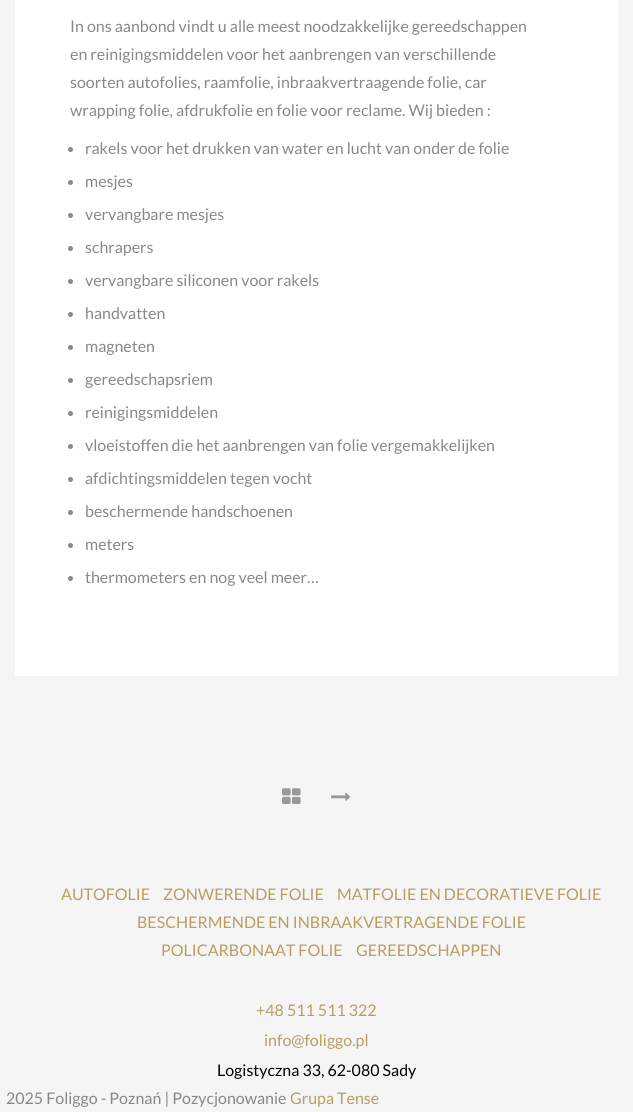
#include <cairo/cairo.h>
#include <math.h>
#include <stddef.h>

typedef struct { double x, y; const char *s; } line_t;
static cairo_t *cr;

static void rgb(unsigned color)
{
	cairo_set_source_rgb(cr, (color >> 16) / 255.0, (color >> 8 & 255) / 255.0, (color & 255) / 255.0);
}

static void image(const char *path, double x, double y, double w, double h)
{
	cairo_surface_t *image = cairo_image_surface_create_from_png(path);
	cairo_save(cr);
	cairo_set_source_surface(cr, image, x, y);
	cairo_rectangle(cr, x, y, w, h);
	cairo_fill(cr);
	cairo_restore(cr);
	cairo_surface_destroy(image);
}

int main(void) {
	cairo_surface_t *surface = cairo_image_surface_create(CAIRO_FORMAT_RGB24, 633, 1112);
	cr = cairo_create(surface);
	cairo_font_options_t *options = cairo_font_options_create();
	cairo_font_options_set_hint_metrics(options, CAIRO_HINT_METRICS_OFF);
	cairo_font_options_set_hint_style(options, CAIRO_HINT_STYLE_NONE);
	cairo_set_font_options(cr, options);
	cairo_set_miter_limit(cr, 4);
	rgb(0xf5f5f5);
	cairo_paint(cr);
	rgb(0xffffff);
	cairo_rectangle(cr, 15, 0, 603, 676);
	cairo_fill(cr);
	rgb(0x888888);
	cairo_arc(cr, 70.5, 149.5, 2.5, 0, 2 * M_PI);
	cairo_fill(cr);
	cairo_arc(cr, 70.5, 182.5, 2.5, 0, 2 * M_PI);
	cairo_fill(cr);
	cairo_arc(cr, 70.5, 215.5, 2.5, 0, 2 * M_PI);
	cairo_fill(cr);
	cairo_arc(cr, 70.5, 248.5, 2.5, 0, 2 * M_PI);
	cairo_fill(cr);
	cairo_arc(cr, 70.5, 281.5, 2.5, 0, 2 * M_PI);
	cairo_fill(cr);
	cairo_arc(cr, 70.5, 314.5, 2.5, 0, 2 * M_PI);
	cairo_fill(cr);
	cairo_arc(cr, 70.5, 347.5, 2.5, 0, 2 * M_PI);
	cairo_fill(cr);
	cairo_arc(cr, 70.5, 380.5, 2.5, 0, 2 * M_PI);
	cairo_fill(cr);
	cairo_arc(cr, 70.5, 413.5, 2.5, 0, 2 * M_PI);
	cairo_fill(cr);
	cairo_arc(cr, 70.5, 446.5, 2.5, 0, 2 * M_PI);
	cairo_fill(cr);
	cairo_arc(cr, 70.5, 479.5, 2.5, 0, 2 * M_PI);
	cairo_fill(cr);
	cairo_arc(cr, 70.5, 512.5, 2.5, 0, 2 * M_PI);
	cairo_fill(cr);
	cairo_arc(cr, 70.5, 545.5, 2.5, 0, 2 * M_PI);
	cairo_fill(cr);
	cairo_arc(cr, 70.5, 578.5, 2.5, 0, 2 * M_PI);
	cairo_fill(cr);
	image("img/1.png", 282, 788, 19, 16);
	image("img/2.png", 331, 792, 20, 9);
	cairo_select_font_face(cr, "Lato", CAIRO_FONT_SLANT_NORMAL, CAIRO_FONT_WEIGHT_NORMAL);
	cairo_set_font_size(cr, 16);
	{
		static const line_t items[] = {
			{70, 32, "In ons aanbond vindt u alle meest noodzakkelijke gereedschappen"},
			{70, 60, "en reinigingsmiddelen voor het aanbrengen van verschillende"},
			{70, 88, "soorten autofolies, raamfolie, inbraakvertraagende folie, car"},
			{70, 116, "wrapping folie, afdrukfolie en folie voor reclame. Wij bieden :"},
			{85, 154, "rakels voor het drukken van water en lucht van onder de folie"},
			{85, 187, "mesjes"},
			{85, 220, "vervangbare mesjes"},
			{85, 253, "schrapers"},
			{85, 286, "vervangbare siliconen voor rakels"},
			{85, 319, "handvatten"},
			{85, 352, "magneten"},
			{85, 385, "gereedschapsriem"},
			{85, 418, "reinigingsmiddelen"},
			{85, 451, "vloeistoffen die het aanbrengen van folie vergemakkelijken"},
			{85, 484, "afdichtingsmiddelen tegen vocht"},
			{85, 517, "beschermende handschoenen"},
			{85, 550, "meters"},
			{85, 583, "thermometers en nog veel meer…"},
		};
		for (size_t i = 0; i < sizeof items / sizeof *items; i++) {
			cairo_move_to(cr, items[i].x, items[i].y);
			cairo_show_text(cr, items[i].s);
		}
	}
	rgb(0xb99d61);
	{
		static const line_t items[] = {
			{61, 900, "AUTOFOLIE"},
			{163, 900, "ZONWERENDE FOLIE"},
			{337, 900, "MATFOLIE EN DECORATIEVE FOLIE"},
			{137, 928, "BESCHERMENDE EN INBRAAKVERTRAGENDE FOLIE"},
			{161, 956, "POLICARBONAAT FOLIE"},
			{356, 956, "GEREEDSCHAPPEN"},
			{256, 1016, "+48 511 511 322"},
			{264, 1046, "info@foliggo.pl"},
		};
		for (size_t i = 0; i < sizeof items / sizeof *items; i++) {
			cairo_move_to(cr, items[i].x, items[i].y);
			cairo_show_text(cr, items[i].s);
		}
	}
	rgb(0x000000);
	cairo_move_to(cr, 217, 1076);
	cairo_show_text(cr, "Logistyczna 33, 62-080 Sady");
	rgb(0x888888);
	cairo_move_to(cr, 6, 1104);
	cairo_show_text(cr, "2025 Foliggo - Poznań | Pozycjonowanie");
	rgb(0xb99d61);
	cairo_move_to(cr, 290, 1104);
	cairo_show_text(cr, "Grupa Tense");
	cairo_surface_write_to_png(surface, "page.png");
	cairo_font_options_destroy(options);
	cairo_destroy(cr);
	cairo_surface_destroy(surface);
	return 0;
}
